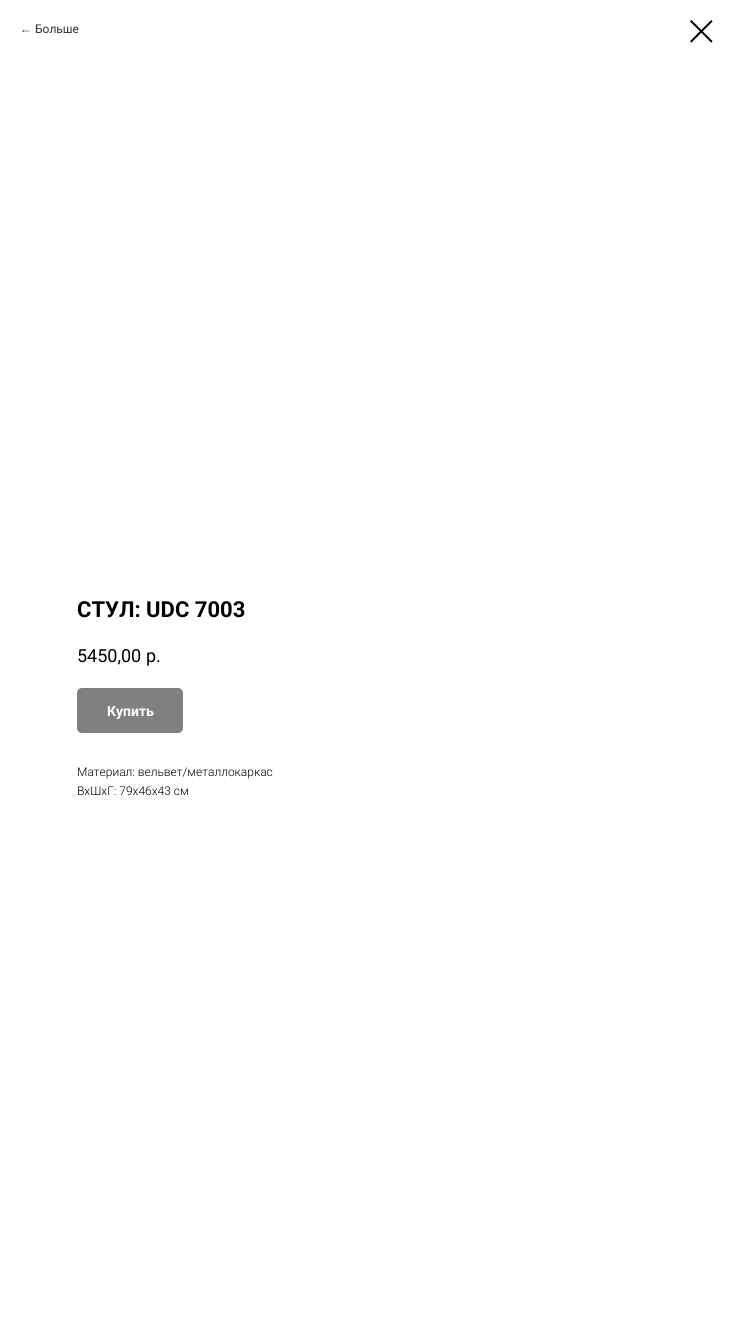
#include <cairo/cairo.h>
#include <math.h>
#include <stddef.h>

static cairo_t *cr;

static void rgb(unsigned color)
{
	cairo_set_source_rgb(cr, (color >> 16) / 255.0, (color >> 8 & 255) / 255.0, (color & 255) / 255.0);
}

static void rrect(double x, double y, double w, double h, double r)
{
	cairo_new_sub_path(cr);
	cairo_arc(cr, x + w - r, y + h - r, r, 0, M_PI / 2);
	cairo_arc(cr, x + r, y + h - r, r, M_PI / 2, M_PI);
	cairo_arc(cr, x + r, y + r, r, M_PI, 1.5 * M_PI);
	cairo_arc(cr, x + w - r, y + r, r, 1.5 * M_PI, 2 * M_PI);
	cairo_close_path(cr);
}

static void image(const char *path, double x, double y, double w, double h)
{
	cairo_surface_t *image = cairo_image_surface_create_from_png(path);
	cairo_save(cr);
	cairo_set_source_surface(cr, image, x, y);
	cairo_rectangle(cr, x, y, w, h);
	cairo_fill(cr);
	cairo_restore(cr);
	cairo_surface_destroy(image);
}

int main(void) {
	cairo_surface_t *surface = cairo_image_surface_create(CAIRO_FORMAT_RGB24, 733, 1332);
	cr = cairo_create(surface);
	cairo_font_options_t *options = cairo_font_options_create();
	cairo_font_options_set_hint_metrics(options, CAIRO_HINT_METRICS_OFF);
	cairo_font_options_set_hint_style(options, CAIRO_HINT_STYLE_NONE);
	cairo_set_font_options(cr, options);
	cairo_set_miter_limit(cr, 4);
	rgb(0xffffff);
	cairo_paint(cr);
	image("img/1.png", 690, 20, 23, 23);
	rgb(0x808080);
	rrect(77, 688, 106, 45, 5);
	cairo_fill(cr);
	cairo_select_font_face(cr, "Liberation Sans", CAIRO_FONT_SLANT_NORMAL, CAIRO_FONT_WEIGHT_NORMAL);
	cairo_set_font_size(cr, 12);
	rgb(0x333333);
	cairo_move_to(cr, 20, 33);
	cairo_show_text(cr, "←");
	cairo_select_font_face(cr, "Roboto", CAIRO_FONT_SLANT_NORMAL, CAIRO_FONT_WEIGHT_NORMAL);
	cairo_move_to(cr, 35, 33);
	cairo_show_text(cr, "Больше");
	cairo_select_font_face(cr, "Roboto", CAIRO_FONT_SLANT_NORMAL, CAIRO_FONT_WEIGHT_BOLD);
	cairo_set_font_size(cr, 22);
	rgb(0x000000);
	cairo_move_to(cr, 77, 617);
	cairo_show_text(cr, "СТУЛ: UDC 7003");
	cairo_select_font_face(cr, "Roboto", CAIRO_FONT_SLANT_NORMAL, CAIRO_FONT_WEIGHT_NORMAL);
	cairo_set_font_size(cr, 18);
	cairo_move_to(cr, 77, 662);
	cairo_show_text(cr, "5450,00");
	cairo_move_to(cr, 146, 662);
	cairo_show_text(cr, "р.");
	cairo_select_font_face(cr, "Roboto", CAIRO_FONT_SLANT_NORMAL, CAIRO_FONT_WEIGHT_BOLD);
	cairo_set_font_size(cr, 14);
	rgb(0xffffff);
	cairo_move_to(cr, 107, 716);
	cairo_show_text(cr, "Купить");
	cairo_select_font_face(cr, "Roboto Light", CAIRO_FONT_SLANT_NORMAL, CAIRO_FONT_WEIGHT_NORMAL);
	cairo_set_font_size(cr, 12);
	rgb(0x000000);
	cairo_move_to(cr, 77, 776);
	cairo_show_text(cr, "Материал: вельвет/металлокаркас");
	cairo_move_to(cr, 77, 795);
	cairo_show_text(cr, "ВхШхГ: 79х46х43 см");
	cairo_surface_write_to_png(surface, "page.png");
	cairo_font_options_destroy(options);
	cairo_destroy(cr);
	cairo_surface_destroy(surface);
	return 0;
}
